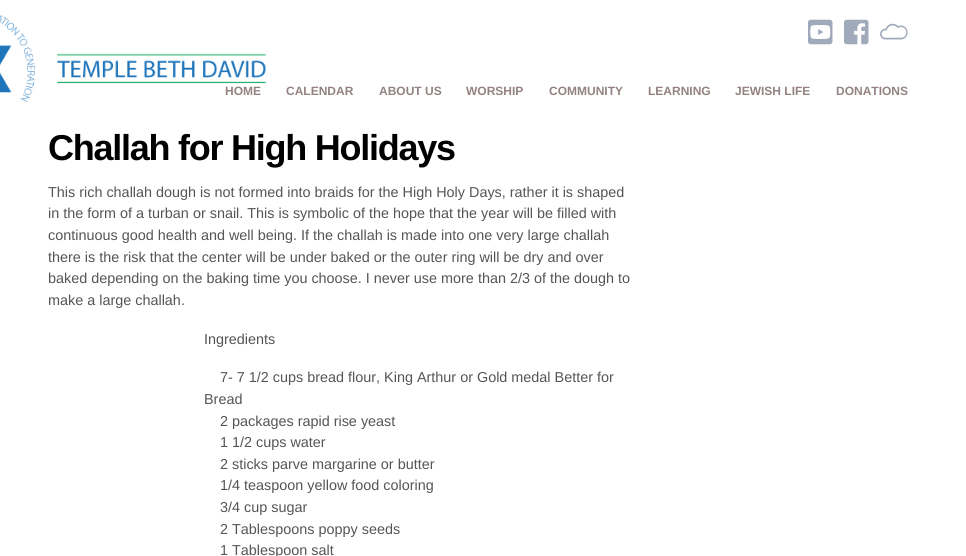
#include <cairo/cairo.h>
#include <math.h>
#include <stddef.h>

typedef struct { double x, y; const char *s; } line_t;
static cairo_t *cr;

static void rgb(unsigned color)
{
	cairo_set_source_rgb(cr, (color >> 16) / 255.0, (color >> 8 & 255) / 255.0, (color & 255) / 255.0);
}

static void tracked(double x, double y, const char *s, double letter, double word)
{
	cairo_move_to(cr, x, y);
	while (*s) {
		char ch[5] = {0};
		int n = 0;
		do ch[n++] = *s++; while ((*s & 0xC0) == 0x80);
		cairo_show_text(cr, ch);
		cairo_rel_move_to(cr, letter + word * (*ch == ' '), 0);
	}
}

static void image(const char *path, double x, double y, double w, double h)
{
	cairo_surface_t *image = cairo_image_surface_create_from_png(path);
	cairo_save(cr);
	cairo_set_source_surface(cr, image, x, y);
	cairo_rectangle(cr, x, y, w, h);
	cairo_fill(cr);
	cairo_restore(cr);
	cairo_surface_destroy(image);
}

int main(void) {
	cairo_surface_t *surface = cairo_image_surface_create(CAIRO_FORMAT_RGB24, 966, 556);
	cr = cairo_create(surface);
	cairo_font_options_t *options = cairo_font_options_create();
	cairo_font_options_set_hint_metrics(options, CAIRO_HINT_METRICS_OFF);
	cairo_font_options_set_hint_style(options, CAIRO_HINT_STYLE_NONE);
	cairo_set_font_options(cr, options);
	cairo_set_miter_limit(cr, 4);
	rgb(0xffffff);
	cairo_paint(cr);
	image("img/1.png", 0, 15, 267, 87);
	image("img/2.png", 808, 19, 25, 26);
	image("img/3.png", 844, 19, 25, 26);
	image("img/4.png", 880, 23, 28, 17);
	cairo_select_font_face(cr, "Liberation Sans", CAIRO_FONT_SLANT_NORMAL, CAIRO_FONT_WEIGHT_BOLD);
	cairo_set_font_size(cr, 12);
	rgb(0x948282);
	{
		static const line_t items[] = {
			{225, 95, "HOME"},
			{286, 95, "CALENDAR"},
			{379, 95, "ABOUT US"},
			{466, 95, "WORSHIP"},
			{549, 95, "COMMUNITY"},
			{648, 95, "LEARNING"},
			{735, 95, "JEWISH LIFE"},
			{836, 95, "DONATIONS"},
		};
		for (size_t i = 0; i < sizeof items / sizeof *items; i++) {
			cairo_move_to(cr, items[i].x, items[i].y);
			cairo_show_text(cr, items[i].s);
		}
	}
	cairo_set_font_size(cr, 36);
	rgb(0x000000);
	tracked(48, 160, "Challah for High Holidays", -1.25, 0);
	cairo_select_font_face(cr, "Liberation Sans", CAIRO_FONT_SLANT_NORMAL, CAIRO_FONT_WEIGHT_NORMAL);
	cairo_set_font_size(cr, 14.4);
	rgb(0x555555);
	{
		static const line_t items[] = {
			{48, 197, "This rich challah dough is not formed into braids for the High Holy Days, rather it is shaped"},
			{48, 218, "in the form of a turban or snail. This is symbolic of the hope that the year will be filled with"},
			{48, 240, "continuous good health and well being. If the challah is made into one very large challah"},
			{48, 262, "there is the risk that the center will be under baked or the outer ring will be dry and over"},
			{48, 283, "baked depending on the baking time you choose. I never use more than 2/3 of the dough to"},
			{48, 305, "make a large challah."},
			{204, 344, "Ingredients"},
			{220, 382, "7- 7 1/2 cups bread flour, King Arthur or Gold medal Better for"},
			{204, 404, "Bread"},
			{220, 426, "2 packages rapid rise yeast"},
			{220, 447, "1 1/2 cups water"},
			{220, 469, "2 sticks parve margarine or butter"},
			{220, 490, "1/4 teaspoon yellow food coloring"},
			{220, 512, "3/4 cup sugar"},
			{220, 534, "2 Tablespoons poppy seeds"},
			{220, 555, "1 Tablespoon salt"},
		};
		for (size_t i = 0; i < sizeof items / sizeof *items; i++) {
			cairo_move_to(cr, items[i].x, items[i].y);
			cairo_show_text(cr, items[i].s);
		}
	}
	cairo_surface_write_to_png(surface, "page.png");
	cairo_font_options_destroy(options);
	cairo_destroy(cr);
	cairo_surface_destroy(surface);
	return 0;
}
